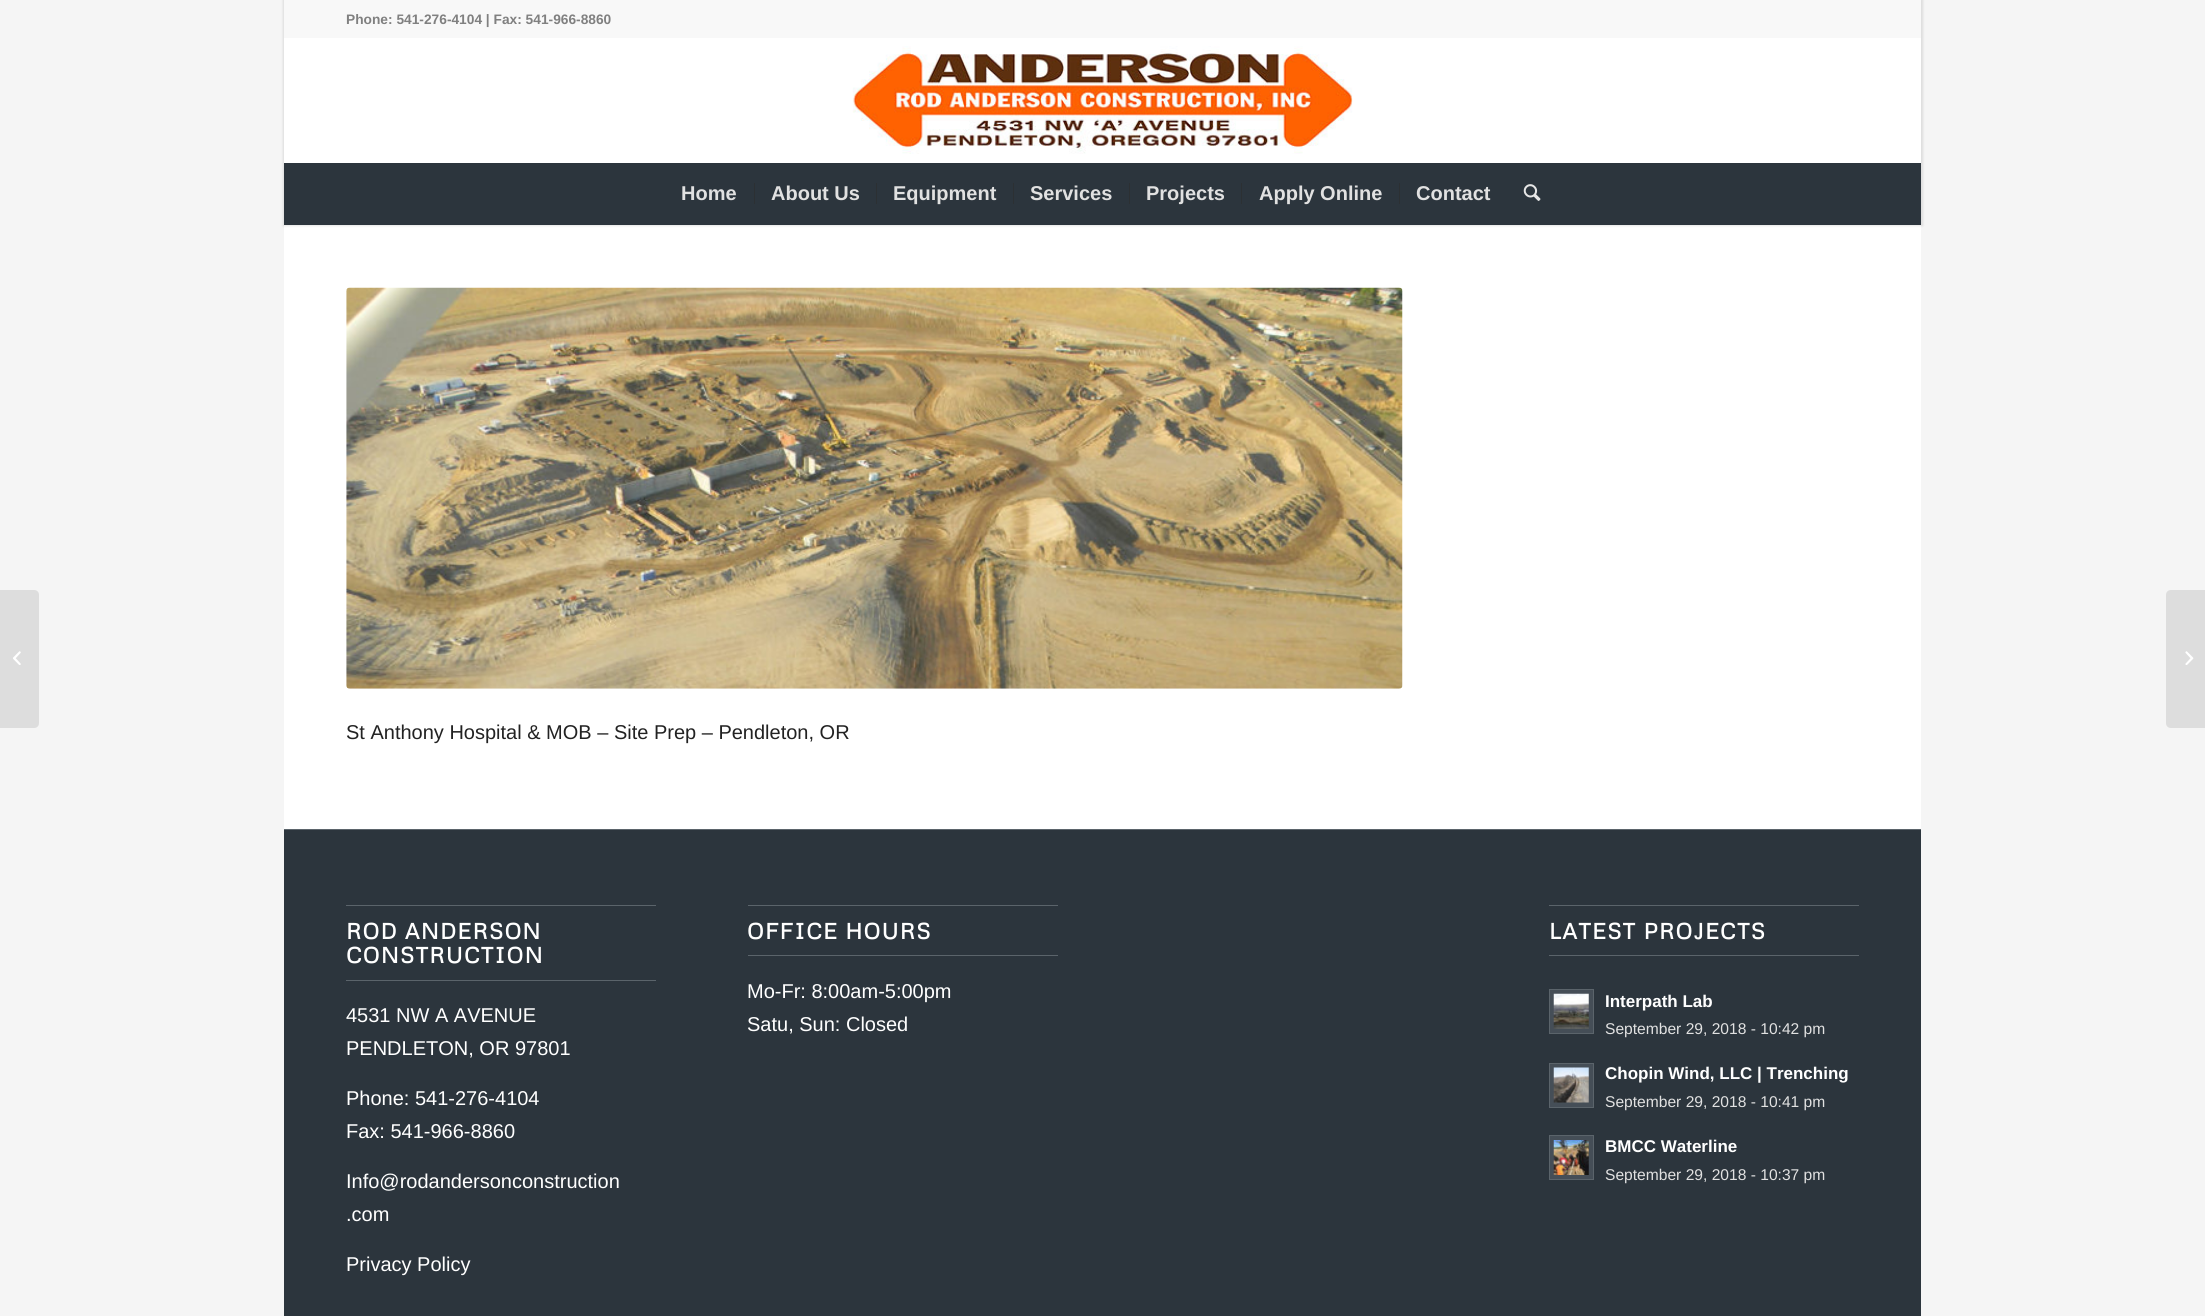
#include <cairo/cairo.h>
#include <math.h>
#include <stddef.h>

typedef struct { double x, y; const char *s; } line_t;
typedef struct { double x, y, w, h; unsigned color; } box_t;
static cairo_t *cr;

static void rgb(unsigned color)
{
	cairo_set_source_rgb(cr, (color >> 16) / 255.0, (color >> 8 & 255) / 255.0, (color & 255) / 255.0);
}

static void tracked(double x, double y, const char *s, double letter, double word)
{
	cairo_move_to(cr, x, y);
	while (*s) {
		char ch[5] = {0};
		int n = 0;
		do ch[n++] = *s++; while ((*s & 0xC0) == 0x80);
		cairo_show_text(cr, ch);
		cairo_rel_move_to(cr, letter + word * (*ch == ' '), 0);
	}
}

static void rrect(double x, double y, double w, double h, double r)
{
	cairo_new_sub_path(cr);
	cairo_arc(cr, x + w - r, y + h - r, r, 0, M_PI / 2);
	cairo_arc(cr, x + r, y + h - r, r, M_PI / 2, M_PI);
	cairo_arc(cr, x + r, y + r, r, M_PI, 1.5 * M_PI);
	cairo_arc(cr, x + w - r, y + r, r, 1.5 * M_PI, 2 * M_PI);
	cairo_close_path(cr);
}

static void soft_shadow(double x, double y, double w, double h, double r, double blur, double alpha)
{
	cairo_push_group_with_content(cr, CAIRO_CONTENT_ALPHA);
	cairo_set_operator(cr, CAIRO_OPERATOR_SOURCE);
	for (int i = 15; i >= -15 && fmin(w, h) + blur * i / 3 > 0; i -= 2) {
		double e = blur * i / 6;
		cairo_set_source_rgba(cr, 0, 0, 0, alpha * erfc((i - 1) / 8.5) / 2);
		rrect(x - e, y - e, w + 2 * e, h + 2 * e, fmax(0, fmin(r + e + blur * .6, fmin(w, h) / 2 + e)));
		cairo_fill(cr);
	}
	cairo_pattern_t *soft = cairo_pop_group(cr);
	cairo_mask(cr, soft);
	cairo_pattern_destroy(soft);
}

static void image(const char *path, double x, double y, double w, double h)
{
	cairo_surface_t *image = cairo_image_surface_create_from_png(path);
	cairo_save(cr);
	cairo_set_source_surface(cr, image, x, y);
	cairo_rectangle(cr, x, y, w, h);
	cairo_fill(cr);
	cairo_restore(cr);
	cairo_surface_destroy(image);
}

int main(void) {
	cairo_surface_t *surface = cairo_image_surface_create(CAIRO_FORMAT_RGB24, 2205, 1316);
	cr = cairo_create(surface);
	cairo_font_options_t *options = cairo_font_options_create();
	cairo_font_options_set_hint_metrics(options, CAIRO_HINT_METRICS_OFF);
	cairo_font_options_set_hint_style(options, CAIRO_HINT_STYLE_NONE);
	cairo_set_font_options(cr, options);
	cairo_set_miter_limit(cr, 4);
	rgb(0xf5f5f5);
	cairo_paint(cr);
	rgb(0xffffff);
	cairo_rectangle(cr, 284, 225, 1637, 604);
	cairo_fill(cr);
	rgb(0x000000);
	soft_shadow(283, -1, 1640, 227, 0, 1, 0.1);
	rgb(0xf8f8f8);
	cairo_rectangle(cr, 284, 0, 1637, 38);
	cairo_fill(cr);
	rgb(0xffffff);
	cairo_rectangle(cr, 284, 38, 1637, 125);
	cairo_fill(cr);
	image("img/1.png", 852, 46, 501, 108);
	{
		static const box_t items[] = {
			{284, 163, 1637, 62, 0x2c353d},
			{754, 183, 1, 21, 0x2c3033},
			{876, 183, 1, 21, 0x2c3033},
			{1013, 183, 1, 21, 0x2c3033},
			{1129, 183, 1, 21, 0x2c3033},
			{1241, 183, 1, 21, 0x2c3033},
			{1399, 183, 1, 21, 0x2c3033},
		};
		for (size_t i = 0; i < sizeof items / sizeof *items; i++) {
			rgb(items[i].color);
			cairo_rectangle(cr, items[i].x, items[i].y, items[i].w, items[i].h);
			cairo_fill(cr);
		}
	}
	image("img/2.png", 1523, 184, 18, 17);
	rgb(0xdddddd);
	cairo_new_path(cr);
	cairo_move_to(cr, 0, 590);
	cairo_line_to(cr, 34, 590);
	cairo_curve_to(cr, 37, 590, 39, 592, 39, 595);
	cairo_line_to(cr, 39, 723);
	cairo_curve_to(cr, 39, 726, 37, 728, 34, 728);
	cairo_line_to(cr, 0, 728);
	cairo_close_path(cr);
	cairo_fill(cr);
	image("img/3.png", 13, 651, 8, 14);
	cairo_new_path(cr);
	cairo_move_to(cr, 2171, 590);
	cairo_line_to(cr, 2205, 590);
	cairo_line_to(cr, 2205, 728);
	cairo_line_to(cr, 2171, 728);
	cairo_curve_to(cr, 2168, 728, 2166, 726, 2166, 723);
	cairo_line_to(cr, 2166, 595);
	cairo_curve_to(cr, 2166, 592, 2168, 590, 2171, 590);
	cairo_close_path(cr);
	cairo_fill(cr);
	image("img/4.png", 2185, 651, 9, 14);
	image("img/5.png", 346, 287, 1057, 402);
	{
		static const box_t items[] = {
			{284, 830, 1637, 486, 0x2c353d},
			{284, 829, 1637, 1, 0x5b646b},
			{346, 905, 310, 1, 0x5b646b},
			{346, 980, 310, 1, 0x5b646b},
			{748, 905, 310, 1, 0x5b646b},
			{748, 955, 310, 1, 0x5b646b},
			{1549, 905, 310, 1, 0x5b646b},
			{1549, 955, 310, 1, 0x5b646b},
		};
		for (size_t i = 0; i < sizeof items / sizeof *items; i++) {
			rgb(items[i].color);
			cairo_rectangle(cr, items[i].x, items[i].y, items[i].w, items[i].h);
			cairo_fill(cr);
		}
	}
	rgb(0x454e57);
	cairo_rectangle(cr, 1549.5, 989.5, 44, 44);
	cairo_fill_preserve(cr);
	rgb(0x5b646b);
	cairo_set_line_width(cr, 1);
	cairo_stroke(cr);
	image("img/6.png", 1553, 993, 36, 36);
	rgb(0x454e57);
	cairo_rectangle(cr, 1549.5, 1063.5, 44, 44);
	cairo_fill_preserve(cr);
	rgb(0x5b646b);
	cairo_stroke(cr);
	image("img/7.png", 1553, 1067, 36, 36);
	rgb(0x454e57);
	cairo_rectangle(cr, 1549.5, 1135.5, 44, 44);
	cairo_fill_preserve(cr);
	rgb(0x5b646b);
	cairo_stroke(cr);
	image("img/8.png", 1553, 1140, 36, 35);
	cairo_select_font_face(cr, "Liberation Sans", CAIRO_FONT_SLANT_NORMAL, CAIRO_FONT_WEIGHT_BOLD);
	cairo_set_font_size(cr, 13.75);
	rgb(0x808080);
	cairo_move_to(cr, 346, 24);
	cairo_show_text(cr, "Phone: 541-276-4104 | Fax: 541-966-8860");
	cairo_set_font_size(cr, 20);
	rgb(0xe1e1e1);
	{
		static const line_t items[] = {
			{681, 200, "Home"},
			{771, 200, "About Us"},
			{893, 200, "Equipment"},
			{1030, 200, "Services"},
			{1146, 200, "Projects"},
			{1259, 200, "Apply Online"},
			{1416, 200, "Contact"},
		};
		for (size_t i = 0; i < sizeof items / sizeof *items; i++) {
			cairo_move_to(cr, items[i].x, items[i].y);
			cairo_show_text(cr, items[i].s);
		}
	}
	cairo_select_font_face(cr, "Liberation Sans", CAIRO_FONT_SLANT_NORMAL, CAIRO_FONT_WEIGHT_NORMAL);
	rgb(0x222222);
	cairo_move_to(cr, 346, 739);
	cairo_show_text(cr, "St Anthony Hospital & MOB – Site Prep – Pendleton, OR");
	cairo_select_font_face(cr, "Metrophobic", CAIRO_FONT_SLANT_NORMAL, CAIRO_FONT_WEIGHT_BOLD);
	cairo_set_font_size(cr, 22);
	rgb(0xffffff);
	tracked(346, 939, "ROD ANDERSON", 1.25, 0);
	tracked(346, 963, "CONSTRUCTION", 1.25, 0);
	cairo_select_font_face(cr, "Liberation Sans", CAIRO_FONT_SLANT_NORMAL, CAIRO_FONT_WEIGHT_NORMAL);
	cairo_set_font_size(cr, 20);
	{
		static const line_t items[] = {
			{346, 1022, "4531 NW A AVENUE"},
			{346, 1055, "PENDLETON, OR 97801"},
			{346, 1105, "Phone: 541-276-4104"},
			{346, 1138, "Fax: 541-966-8860"},
			{346, 1188, "Info@rodandersonconstruction"},
			{346, 1221, ".com"},
			{346, 1271, "Privacy Policy"},
		};
		for (size_t i = 0; i < sizeof items / sizeof *items; i++) {
			cairo_move_to(cr, items[i].x, items[i].y);
			cairo_show_text(cr, items[i].s);
		}
	}
	cairo_select_font_face(cr, "Metrophobic", CAIRO_FONT_SLANT_NORMAL, CAIRO_FONT_WEIGHT_BOLD);
	cairo_set_font_size(cr, 22);
	tracked(747, 939, "OFFICE HOURS", 1.25, 0);
	cairo_select_font_face(cr, "Liberation Sans", CAIRO_FONT_SLANT_NORMAL, CAIRO_FONT_WEIGHT_NORMAL);
	cairo_set_font_size(cr, 20);
	cairo_move_to(cr, 747, 998);
	cairo_show_text(cr, "Mo-Fr: 8:00am-5:00pm");
	cairo_move_to(cr, 747, 1031);
	cairo_show_text(cr, "Satu, Sun: Closed");
	cairo_select_font_face(cr, "Metrophobic", CAIRO_FONT_SLANT_NORMAL, CAIRO_FONT_WEIGHT_BOLD);
	cairo_set_font_size(cr, 22);
	tracked(1549, 939, "LATEST PROJECTS", 1.25, 0);
	cairo_select_font_face(cr, "Liberation Sans", CAIRO_FONT_SLANT_NORMAL, CAIRO_FONT_WEIGHT_BOLD);
	cairo_set_font_size(cr, 17);
	cairo_move_to(cr, 1605, 1007);
	cairo_show_text(cr, "Interpath Lab");
	cairo_select_font_face(cr, "Liberation Sans", CAIRO_FONT_SLANT_NORMAL, CAIRO_FONT_WEIGHT_NORMAL);
	cairo_set_font_size(cr, 15.6);
	rgb(0xe1e1e1);
	cairo_move_to(cr, 1605, 1034);
	cairo_show_text(cr, "September 29, 2018 - 10:42 pm");
	cairo_select_font_face(cr, "Liberation Sans", CAIRO_FONT_SLANT_NORMAL, CAIRO_FONT_WEIGHT_BOLD);
	cairo_set_font_size(cr, 17);
	rgb(0xffffff);
	cairo_move_to(cr, 1605, 1079);
	cairo_show_text(cr, "Chopin Wind, LLC | Trenching");
	cairo_select_font_face(cr, "Liberation Sans", CAIRO_FONT_SLANT_NORMAL, CAIRO_FONT_WEIGHT_NORMAL);
	cairo_set_font_size(cr, 15.6);
	rgb(0xe1e1e1);
	cairo_move_to(cr, 1605, 1107);
	cairo_show_text(cr, "September 29, 2018 - 10:41 pm");
	cairo_select_font_face(cr, "Liberation Sans", CAIRO_FONT_SLANT_NORMAL, CAIRO_FONT_WEIGHT_BOLD);
	cairo_set_font_size(cr, 17);
	rgb(0xffffff);
	cairo_move_to(cr, 1605, 1152);
	cairo_show_text(cr, "BMCC Waterline");
	cairo_select_font_face(cr, "Liberation Sans", CAIRO_FONT_SLANT_NORMAL, CAIRO_FONT_WEIGHT_NORMAL);
	cairo_set_font_size(cr, 15.6);
	rgb(0xe1e1e1);
	cairo_move_to(cr, 1605, 1180);
	cairo_show_text(cr, "September 29, 2018 - 10:37 pm");
	cairo_surface_write_to_png(surface, "page.png");
	cairo_font_options_destroy(options);
	cairo_destroy(cr);
	cairo_surface_destroy(surface);
	return 0;
}
